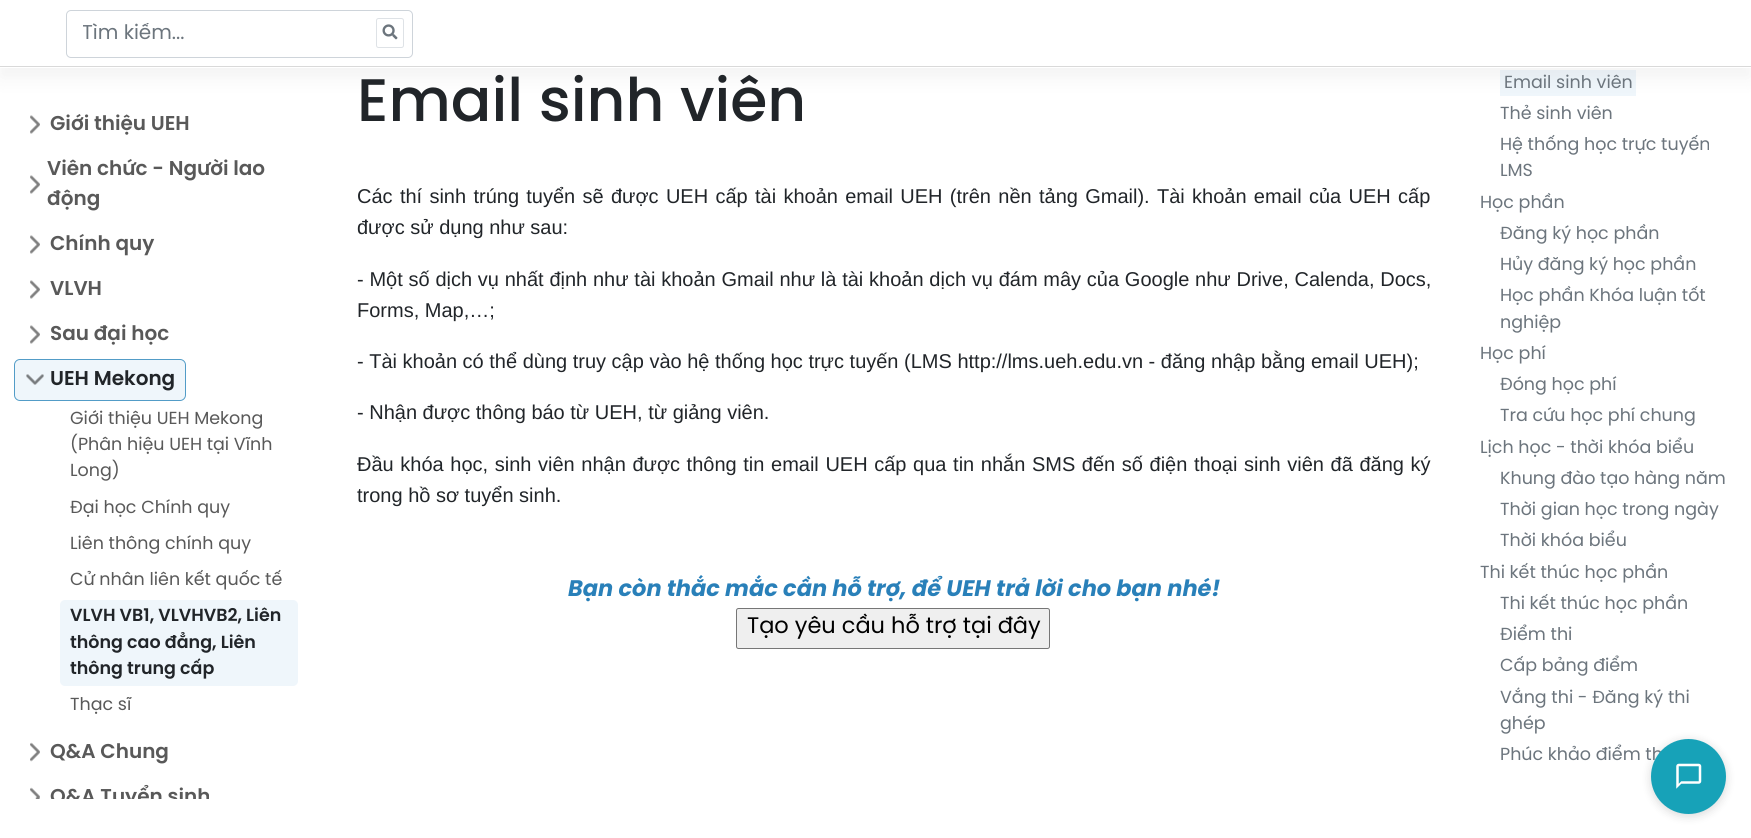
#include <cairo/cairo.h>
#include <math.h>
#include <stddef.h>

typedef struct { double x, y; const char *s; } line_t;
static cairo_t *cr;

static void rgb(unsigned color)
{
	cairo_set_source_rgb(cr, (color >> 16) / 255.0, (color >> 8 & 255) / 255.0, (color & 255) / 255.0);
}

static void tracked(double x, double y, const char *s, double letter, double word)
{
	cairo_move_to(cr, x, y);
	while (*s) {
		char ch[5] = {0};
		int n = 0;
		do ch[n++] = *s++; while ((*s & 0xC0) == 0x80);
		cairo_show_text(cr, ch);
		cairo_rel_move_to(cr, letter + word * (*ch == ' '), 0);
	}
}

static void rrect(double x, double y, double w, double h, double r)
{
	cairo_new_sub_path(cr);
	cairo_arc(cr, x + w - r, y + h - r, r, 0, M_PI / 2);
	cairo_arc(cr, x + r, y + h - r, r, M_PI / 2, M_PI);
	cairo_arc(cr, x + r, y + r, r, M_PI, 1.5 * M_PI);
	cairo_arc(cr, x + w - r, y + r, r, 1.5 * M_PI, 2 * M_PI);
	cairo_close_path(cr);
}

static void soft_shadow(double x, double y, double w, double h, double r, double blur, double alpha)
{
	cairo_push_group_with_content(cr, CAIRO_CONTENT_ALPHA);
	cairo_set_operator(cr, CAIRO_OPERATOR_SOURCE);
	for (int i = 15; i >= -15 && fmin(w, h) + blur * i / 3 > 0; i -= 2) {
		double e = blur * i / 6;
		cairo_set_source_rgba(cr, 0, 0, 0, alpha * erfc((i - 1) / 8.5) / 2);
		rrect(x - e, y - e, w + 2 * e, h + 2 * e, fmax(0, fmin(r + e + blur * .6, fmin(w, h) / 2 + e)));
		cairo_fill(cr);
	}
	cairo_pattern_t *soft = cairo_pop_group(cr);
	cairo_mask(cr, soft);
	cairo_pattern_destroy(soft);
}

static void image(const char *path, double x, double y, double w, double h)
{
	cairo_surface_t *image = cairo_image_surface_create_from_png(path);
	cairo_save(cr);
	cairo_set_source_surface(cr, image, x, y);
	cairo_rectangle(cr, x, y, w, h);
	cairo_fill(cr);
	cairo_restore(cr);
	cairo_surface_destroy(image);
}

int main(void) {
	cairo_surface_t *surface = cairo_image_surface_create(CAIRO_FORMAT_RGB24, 1751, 838);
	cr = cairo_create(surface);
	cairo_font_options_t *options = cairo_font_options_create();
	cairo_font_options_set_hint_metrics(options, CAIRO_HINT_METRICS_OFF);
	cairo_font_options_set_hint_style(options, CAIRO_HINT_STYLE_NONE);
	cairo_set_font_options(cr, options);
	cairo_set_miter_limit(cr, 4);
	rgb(0xffffff);
	cairo_paint(cr);
	rgb(0xeff6fb);
	cairo_rectangle(cr, 1500, 70, 136, 26);
	cairo_fill(cr);
	cairo_save(cr);
	cairo_set_fill_rule(cr, CAIRO_FILL_RULE_EVEN_ODD);
	cairo_new_path(cr);
	cairo_move_to(cr, 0, 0);
	cairo_line_to(cr, 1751, 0);
	cairo_line_to(cr, 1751, 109);
	cairo_line_to(cr, 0, 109);
	cairo_close_path(cr);
	cairo_move_to(cr, 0, 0);
	cairo_line_to(cr, 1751, 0);
	cairo_line_to(cr, 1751, 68);
	cairo_line_to(cr, 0, 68);
	cairo_close_path(cr);
	cairo_clip(cr);
	rgb(0x000000);
	soft_shadow(0, 10, 1751, 68, 0, 10, 0.05);
	cairo_restore(cr);
	cairo_set_source_rgba(cr, 1, 1, 1, 0.95);
	cairo_rectangle(cr, 0, 67, 1751, 1);
	cairo_fill(cr);
	rgb(0xd9d9d9);
	cairo_rectangle(cr, 0, 66, 1751, 1);
	cairo_fill(cr);
	rrect(66.5, 10.5, 346, 47, 4.5);
	rgb(0xced4da);
	cairo_set_line_width(cr, 1);
	cairo_stroke(cr);
	rrect(376.5, 18.5, 27, 29, 2);
	rgb(0xdee2e6);
	cairo_stroke(cr);
	image("img/1.png", 382, 24, 16, 16);
	image("img/2.png", 30, 115, 10, 19);
	image("img/2.png", 30, 175, 10, 19);
	image("img/2.png", 30, 235, 10, 19);
	image("img/2.png", 30, 280, 10, 19);
	image("img/2.png", 30, 325, 10, 19);
	rrect(14.5, 359.5, 171, 41, 5.5);
	rgb(0x529cc7);
	cairo_stroke(cr);
	cairo_set_source_rgba(cr, 0.353, 0.655, 0.839, 0.1);
	rrect(15, 360, 170, 40, 5);
	cairo_fill(cr);
	image("img/3.png", 26, 374, 18, 11);
	rgb(0xeff6fb);
	rrect(60, 600, 238, 86, 5);
	cairo_fill(cr);
	image("img/4.png", 30, 742, 10, 20);
	image("img/5.png", 30, 787, 10, 12);
	rgb(0xefefef);
	rrect(736.5, 608.5, 313, 40, 2);
	cairo_fill_preserve(cr);
	rgb(0x767676);
	cairo_stroke(cr);
	rgb(0x000000);
	soft_shadow(1651, 741, 75, 75, 37.5, 5, 0.15);
	cairo_save(cr);
	cairo_rectangle(cr, 83, 23, 235, 21);
	cairo_clip(cr);
	cairo_select_font_face(cr, "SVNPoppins", CAIRO_FONT_SLANT_NORMAL, CAIRO_FONT_WEIGHT_NORMAL);
	cairo_set_font_size(cr, 20);
	rgb(0x6c757d);
	cairo_move_to(cr, 82, 39);
	cairo_show_text(cr, "Tìm kiếm...");
	cairo_restore(cr);
	cairo_select_font_face(cr, "SVNPoppins SemiBold", CAIRO_FONT_SLANT_NORMAL, CAIRO_FONT_WEIGHT_NORMAL);
	cairo_set_font_size(cr, 20);
	rgb(0x595959);
	{
		static const line_t items[] = {
			{50, 130, "Giới thiệu UEH"},
			{47, 175, "Viên chức - Người lao"},
			{47, 205, "động"},
			{50, 250, "Chính quy"},
			{50, 295, "VLVH"},
			{50, 340, "Sau đại học"},
		};
		for (size_t i = 0; i < sizeof items / sizeof *items; i++) {
			cairo_move_to(cr, items[i].x, items[i].y);
			cairo_show_text(cr, items[i].s);
		}
	}
	rgb(0x212529);
	cairo_move_to(cr, 50, 385);
	cairo_show_text(cr, "UEH Mekong");
	cairo_select_font_face(cr, "SVNPoppins", CAIRO_FONT_SLANT_NORMAL, CAIRO_FONT_WEIGHT_NORMAL);
	cairo_set_font_size(cr, 17.5);
	rgb(0x595959);
	{
		static const line_t items[] = {
			{70, 424, "Giới thiệu UEH Mekong"},
			{70, 450, "(Phân hiệu UEH tại Vĩnh"},
			{70, 476, "Long)"},
			{70, 513, "Đại học Chính quy"},
			{70, 549, "Liên thông chính quy"},
			{70, 585, "Cử nhân liên kết quốc tế"},
		};
		for (size_t i = 0; i < sizeof items / sizeof *items; i++) {
			cairo_move_to(cr, items[i].x, items[i].y);
			cairo_show_text(cr, items[i].s);
		}
	}
	cairo_select_font_face(cr, "SVNPoppins SemiBold", CAIRO_FONT_SLANT_NORMAL, CAIRO_FONT_WEIGHT_NORMAL);
	rgb(0x212529);
	{
		static const line_t items[] = {
			{70, 621, "VLVH VB1, VLVHVB2, Liên"},
			{70, 648, "thông cao đẳng, Liên"},
			{70, 674, "thông trung cấp"},
		};
		for (size_t i = 0; i < sizeof items / sizeof *items; i++) {
			cairo_move_to(cr, items[i].x, items[i].y);
			cairo_show_text(cr, items[i].s);
		}
	}
	cairo_select_font_face(cr, "SVNPoppins", CAIRO_FONT_SLANT_NORMAL, CAIRO_FONT_WEIGHT_NORMAL);
	rgb(0x595959);
	cairo_move_to(cr, 70, 710);
	cairo_show_text(cr, "Thạc sĩ");
	cairo_select_font_face(cr, "SVNPoppins SemiBold", CAIRO_FONT_SLANT_NORMAL, CAIRO_FONT_WEIGHT_NORMAL);
	cairo_set_font_size(cr, 20);
	cairo_move_to(cr, 50, 758);
	cairo_show_text(cr, "Q&A Chung");
	cairo_save(cr);
	cairo_rectangle(cr, 10, 100, 288, 699);
	cairo_clip(cr);
	cairo_move_to(cr, 50, 803);
	cairo_show_text(cr, "Q&A Tuyển sinh");
	cairo_restore(cr);
	cairo_select_font_face(cr, "SVNPoppins Medium", CAIRO_FONT_SLANT_NORMAL, CAIRO_FONT_WEIGHT_NORMAL);
	cairo_set_font_size(cr, 60);
	rgb(0x212529);
	cairo_move_to(cr, 357, 121);
	cairo_show_text(cr, "Email sinh viên");
	cairo_select_font_face(cr, "SVNPoppins", CAIRO_FONT_SLANT_NORMAL, CAIRO_FONT_WEIGHT_NORMAL);
	cairo_set_font_size(cr, 17.5);
	rgb(0x6c757d);
	{
		static const line_t items[] = {
			{1504, 88, "Email sinh viên"},
			{1500, 119, "Thẻ sinh viên"},
			{1500, 150, "Hệ thống học trực tuyến"},
			{1500, 176, "LMS"},
			{1480, 208, "Học phần"},
			{1500, 239, "Đăng ký học phần"},
			{1500, 270, "Hủy đăng ký học phần"},
			{1500, 301, "Học phần Khóa luận tốt"},
			{1500, 328, "nghiệp"},
			{1480, 359, "Học phí"},
			{1500, 390, "Đóng học phí"},
			{1500, 421, "Tra cứu học phí chung"},
			{1480, 453, "Lịch học - thời khóa biểu"},
			{1500, 484, "Khung đào tạo hàng năm"},
			{1500, 515, "Thời gian học trong ngày"},
			{1500, 546, "Thời khóa biểu"},
			{1480, 578, "Thi kết thúc học phần"},
			{1500, 609, "Thi kết thúc học phần"},
			{1500, 640, "Điểm thi"},
			{1500, 671, "Cấp bảng điểm"},
			{1500, 703, "Vắng thi - Đăng ký thi"},
			{1500, 729, "ghép"},
			{1500, 760, "Phúc khảo điểm th"},
		};
		for (size_t i = 0; i < sizeof items / sizeof *items; i++) {
			cairo_move_to(cr, items[i].x, items[i].y);
			cairo_show_text(cr, items[i].s);
		}
	}
	cairo_select_font_face(cr, "Liberation Sans", CAIRO_FONT_SLANT_NORMAL, CAIRO_FONT_WEIGHT_NORMAL);
	cairo_set_font_size(cr, 20);
	rgb(0x212529);
	tracked(357, 203, "Các thí sinh trúng tuyển sẽ được UEH cấp tài khoản email UEH (trên nền tảng Gmail). Tài khoản email của UEH cấp", 0, 1.75);
	cairo_move_to(cr, 357, 234);
	cairo_show_text(cr, "được sử dụng như sau:");
	tracked(357, 286, "- Một số dịch vụ nhất định như tài khoản Gmail như là tài khoản dịch vụ đám mây của Google như Drive, Calenda, Docs,", 0, 0.2);
	{
		static const line_t items[] = {
			{357, 317, "Forms, Map,…;"},
			{357, 368, "- Tài khoản có thể dùng truy cập vào hệ thống học trực tuyến (LMS http://lms.ueh.edu.vn - đăng nhập bằng email UEH);"},
			{357, 419, "- Nhận được thông báo từ UEH, từ giảng viên."},
		};
		for (size_t i = 0; i < sizeof items / sizeof *items; i++) {
			cairo_move_to(cr, items[i].x, items[i].y);
			cairo_show_text(cr, items[i].s);
		}
	}
	tracked(357, 471, "Đầu khóa học, sinh viên nhận được thông tin email UEH cấp qua tin nhắn SMS đến số điện thoại sinh viên đã đăng ký", 0, 1.05);
	cairo_move_to(cr, 357, 502);
	cairo_show_text(cr, "trong hồ sơ tuyển sinh.");
	cairo_select_font_face(cr, "SVNPoppins", CAIRO_FONT_SLANT_ITALIC, CAIRO_FONT_WEIGHT_BOLD);
	cairo_set_font_size(cr, 22.5);
	rgb(0x2980b9);
	cairo_move_to(cr, 568, 596);
	cairo_show_text(cr, "Bạn còn thắc mắc cần hỗ trợ, để UEH trả lời cho bạn nhé!");
	cairo_select_font_face(cr, "SVNPoppins", CAIRO_FONT_SLANT_NORMAL, CAIRO_FONT_WEIGHT_NORMAL);
	rgb(0x000000);
	cairo_move_to(cr, 747, 633);
	cairo_show_text(cr, "Tạo yêu cầu hỗ trợ tại đây");
	rgb(0x17a2b8);
	cairo_new_path(cr);
	cairo_arc(cr, 1688.5, 776.5, 37.5, 0, 2 * M_PI);
	cairo_fill(cr);
	image("img/6.png", 1676, 763, 26, 26);
	cairo_surface_write_to_png(surface, "page.png");
	cairo_font_options_destroy(options);
	cairo_destroy(cr);
	cairo_surface_destroy(surface);
	return 0;
}
